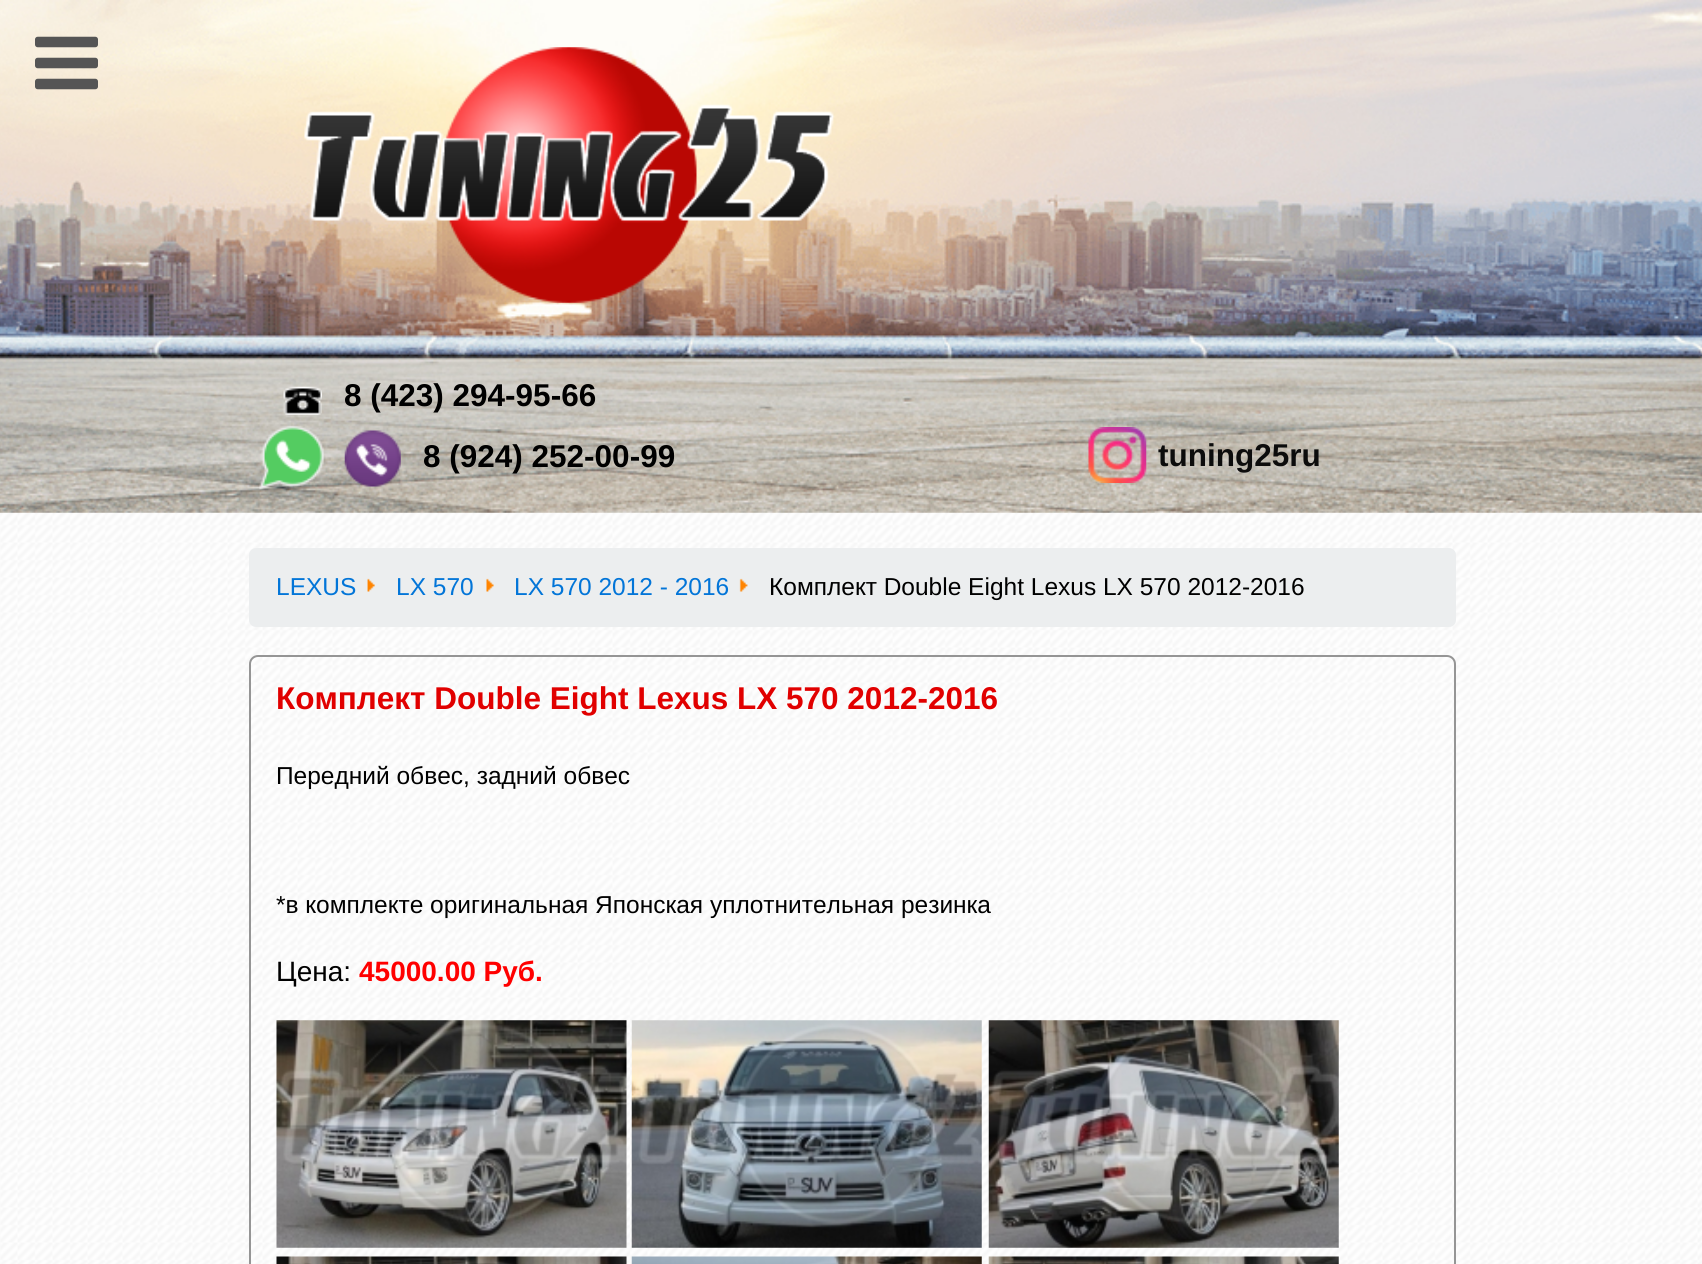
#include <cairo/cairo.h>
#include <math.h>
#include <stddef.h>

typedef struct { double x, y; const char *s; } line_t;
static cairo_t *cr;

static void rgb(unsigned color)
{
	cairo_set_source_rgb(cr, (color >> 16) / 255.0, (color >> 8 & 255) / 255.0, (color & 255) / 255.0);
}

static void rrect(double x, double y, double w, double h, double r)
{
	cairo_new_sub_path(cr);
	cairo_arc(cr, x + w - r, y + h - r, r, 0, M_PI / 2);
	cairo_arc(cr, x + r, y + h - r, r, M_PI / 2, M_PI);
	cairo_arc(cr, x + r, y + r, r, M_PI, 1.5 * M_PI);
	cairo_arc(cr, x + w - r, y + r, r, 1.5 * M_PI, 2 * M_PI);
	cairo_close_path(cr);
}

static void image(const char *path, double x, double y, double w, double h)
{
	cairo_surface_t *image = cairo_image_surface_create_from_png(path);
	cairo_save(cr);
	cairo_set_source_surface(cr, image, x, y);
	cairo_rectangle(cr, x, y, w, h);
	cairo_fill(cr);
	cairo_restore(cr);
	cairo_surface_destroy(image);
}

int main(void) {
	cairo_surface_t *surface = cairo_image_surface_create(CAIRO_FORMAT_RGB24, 1702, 1264);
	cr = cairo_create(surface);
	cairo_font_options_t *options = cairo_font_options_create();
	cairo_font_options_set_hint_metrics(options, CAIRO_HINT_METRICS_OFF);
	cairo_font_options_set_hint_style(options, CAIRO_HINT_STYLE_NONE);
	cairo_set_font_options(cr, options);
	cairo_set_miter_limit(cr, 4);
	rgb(0xffffff);
	cairo_paint(cr);
	image("img/1.png", 0, 512, 1702, 752);
	image("img/3.png", 0, 0, 1702, 513);
	image("img/2.png", 35, 36, 63, 54);
	image("img/4.png", 304, 47, 531, 256);
	image("img/5.png", 283, 386, 39, 29);
	image("img/6.png", 259, 425, 142, 65);
	image("img/7.png", 1088, 427, 59, 56);
	rgb(0xeceeef);
	rrect(249, 548, 1207, 79, 7);
	cairo_fill(cr);
	image("img/8.png", 367, 578, 8, 14);
	image("img/9.png", 486, 578, 8, 14);
	image("img/10.png", 739, 578, 9, 14);
	rrect(250, 656, 1205, 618, 8);
	rgb(0x959595);
	cairo_stroke(cr);
	image("img/11.png", 276, 1020, 351, 228);
	image("img/12.png", 631, 1020, 351, 228);
	image("img/13.png", 988, 1020, 351, 228);
	image("img/14.png", 276, 1256, 351, 8);
	image("img/15.png", 631, 1256, 351, 8);
	image("img/16.png", 988, 1256, 351, 8);
	cairo_select_font_face(cr, "Liberation Sans", CAIRO_FONT_SLANT_NORMAL, CAIRO_FONT_WEIGHT_BOLD);
	cairo_set_font_size(cr, 31.5);
	rgb(0x000000);
	cairo_move_to(cr, 344, 406);
	cairo_show_text(cr, "8 (423) 294-95-66");
	cairo_move_to(cr, 423, 467);
	cairo_show_text(cr, "8 (924) 252-00-99");
	rgb(0x0c0c0c);
	cairo_move_to(cr, 1158, 466);
	cairo_show_text(cr, "tuning25ru");
	cairo_select_font_face(cr, "Liberation Sans", CAIRO_FONT_SLANT_NORMAL, CAIRO_FONT_WEIGHT_NORMAL);
	cairo_set_font_size(cr, 24.5);
	rgb(0x0275d8);
	{
		static const line_t items[] = {
			{276, 595, "LEXUS"},
			{396, 595, "LX 570"},
			{514, 595, "LX 570 2012 - 2016"},
		};
		for (size_t i = 0; i < sizeof items / sizeof *items; i++) {
			cairo_move_to(cr, items[i].x, items[i].y);
			cairo_show_text(cr, items[i].s);
		}
	}
	rgb(0x000000);
	cairo_move_to(cr, 769, 595);
	cairo_show_text(cr, "Комплект Double Eight Lexus LX 570 2012-2016");
	cairo_select_font_face(cr, "Liberation Sans", CAIRO_FONT_SLANT_NORMAL, CAIRO_FONT_WEIGHT_BOLD);
	cairo_set_font_size(cr, 31.5);
	rgb(0xe10000);
	cairo_move_to(cr, 276, 709);
	cairo_show_text(cr, "Комплект Double Eight Lexus LX 570 2012-2016");
	cairo_select_font_face(cr, "Liberation Sans", CAIRO_FONT_SLANT_NORMAL, CAIRO_FONT_WEIGHT_NORMAL);
	cairo_set_font_size(cr, 24.5);
	rgb(0x000000);
	cairo_move_to(cr, 276, 784);
	cairo_show_text(cr, "Передний обвес, задний обвес");
	cairo_move_to(cr, 276, 913);
	cairo_show_text(cr, "*в комплекте оригинальная Японская уплотнительная резинка");
	cairo_set_font_size(cr, 28);
	cairo_move_to(cr, 276, 981);
	cairo_show_text(cr, "Цена:");
	cairo_select_font_face(cr, "Liberation Sans", CAIRO_FONT_SLANT_NORMAL, CAIRO_FONT_WEIGHT_BOLD);
	rgb(0xff0000);
	cairo_move_to(cr, 359, 981);
	cairo_show_text(cr, "45000.00 Руб.");
	cairo_surface_write_to_png(surface, "page.png");
	cairo_font_options_destroy(options);
	cairo_destroy(cr);
	cairo_surface_destroy(surface);
	return 0;
}
